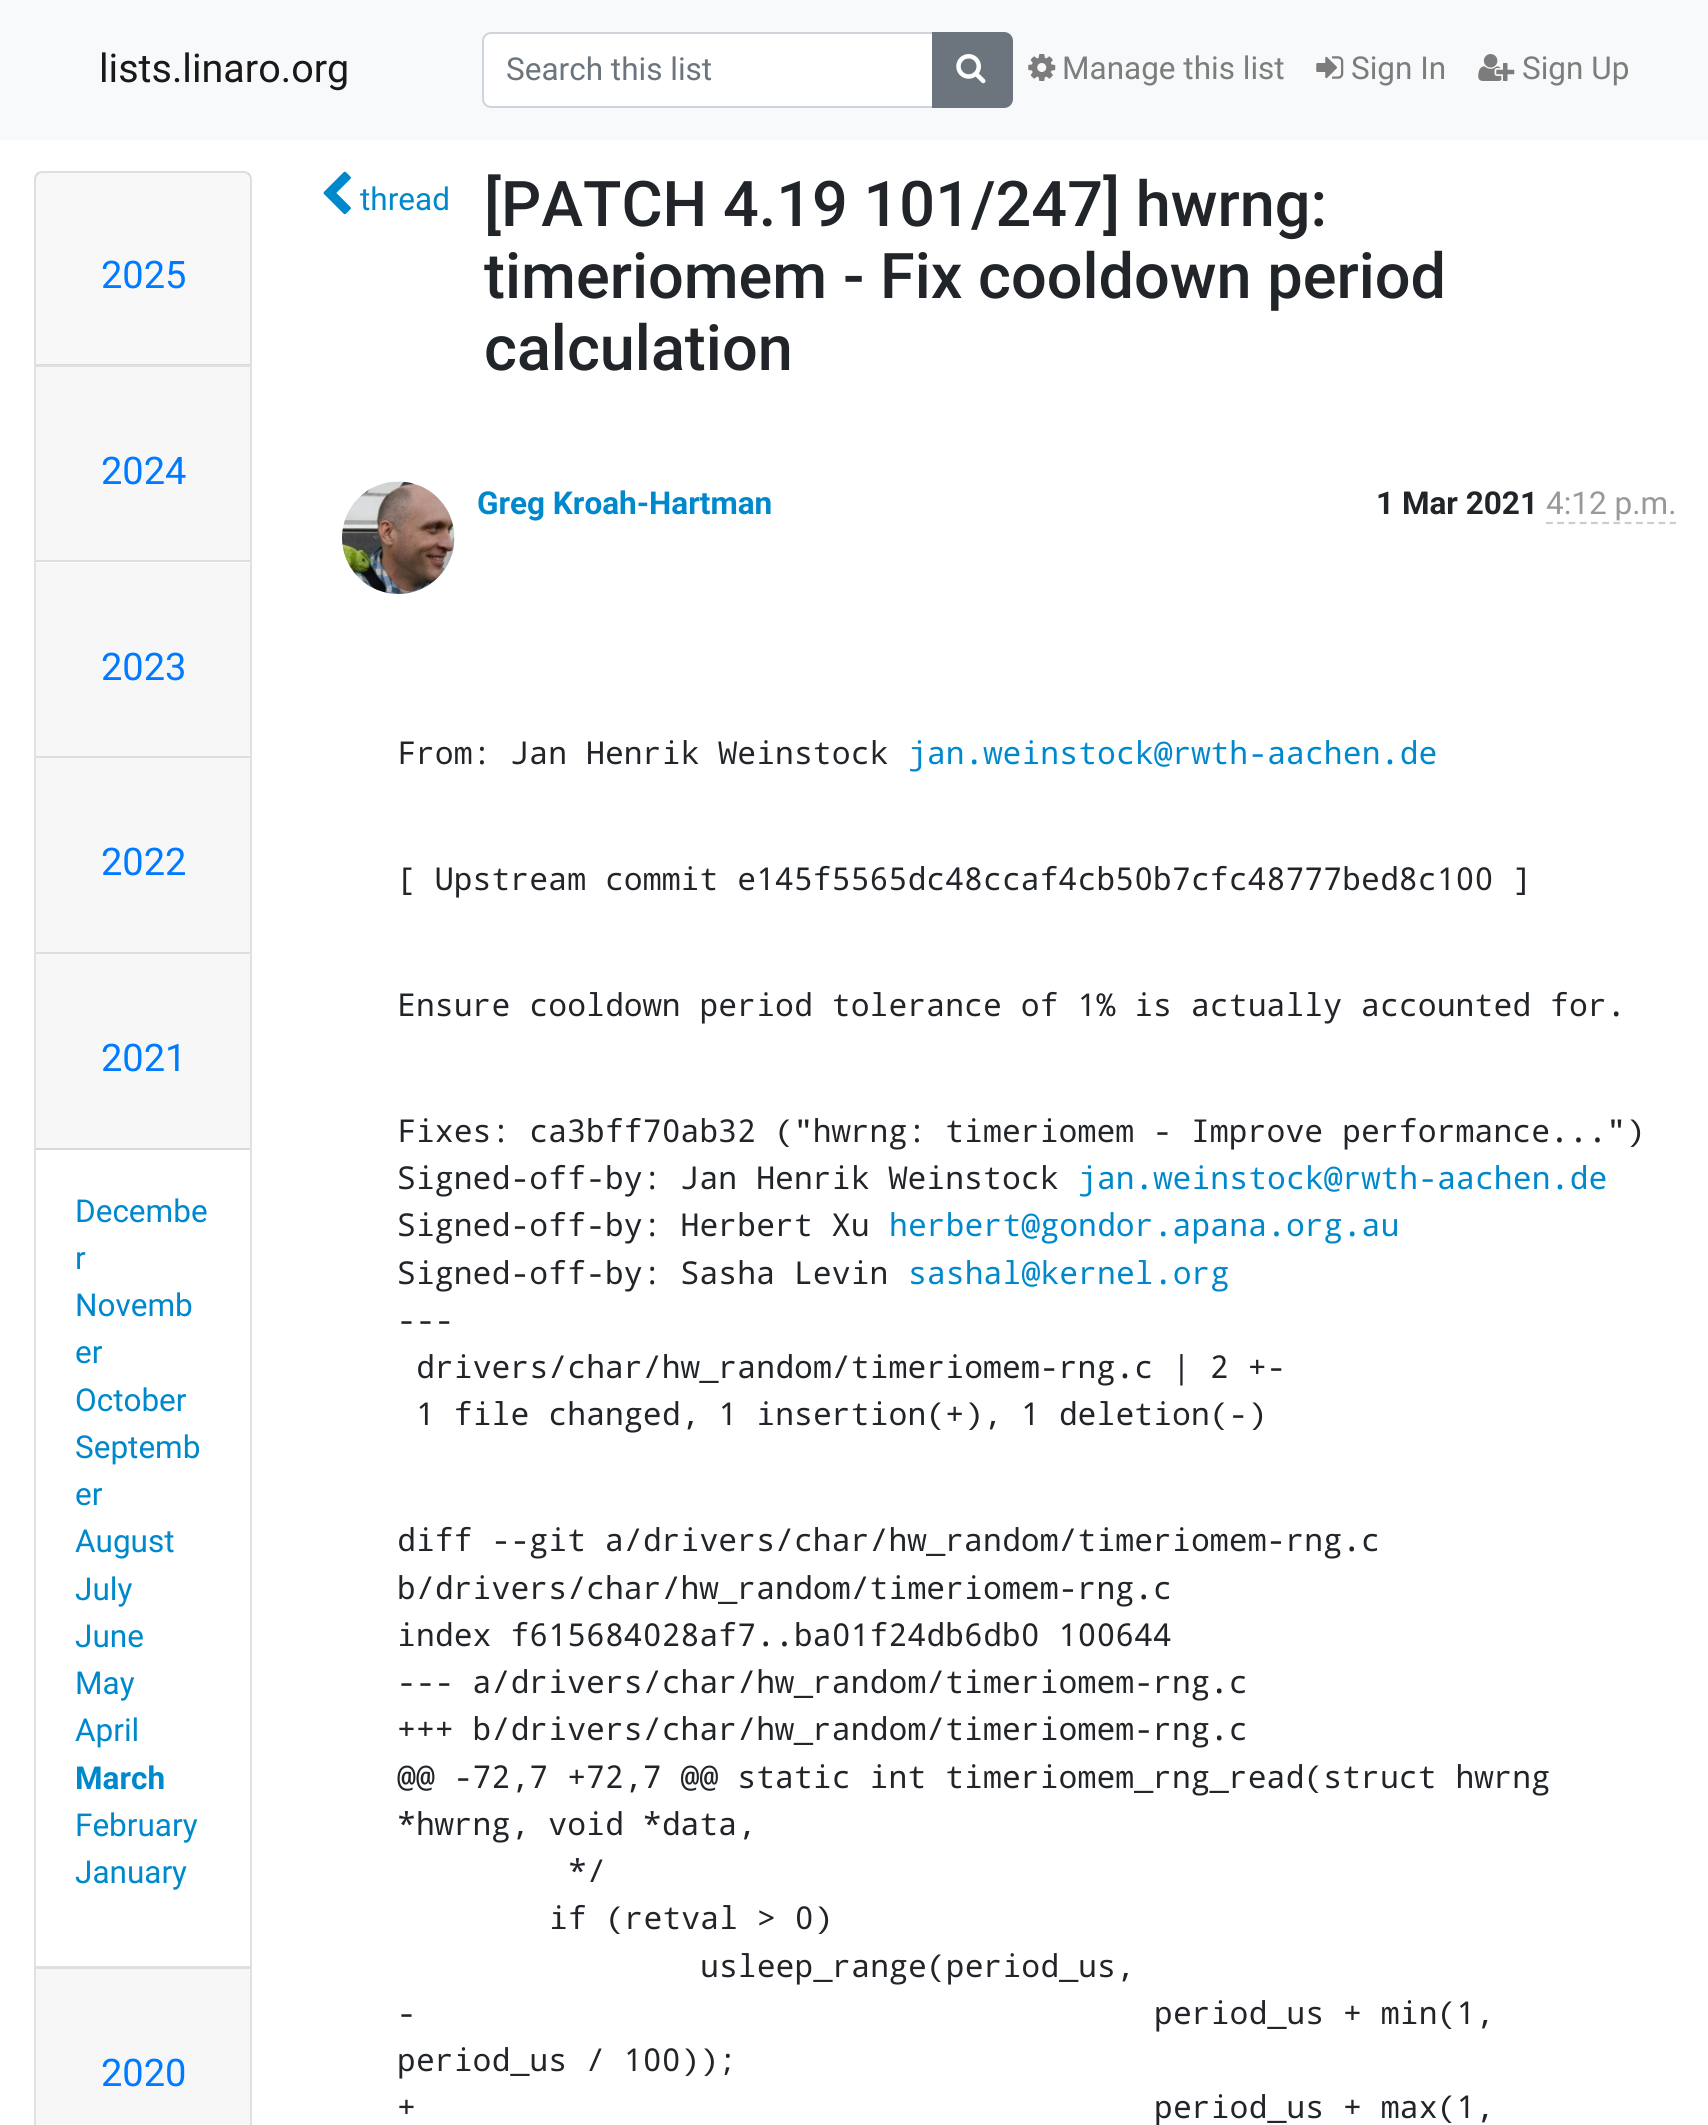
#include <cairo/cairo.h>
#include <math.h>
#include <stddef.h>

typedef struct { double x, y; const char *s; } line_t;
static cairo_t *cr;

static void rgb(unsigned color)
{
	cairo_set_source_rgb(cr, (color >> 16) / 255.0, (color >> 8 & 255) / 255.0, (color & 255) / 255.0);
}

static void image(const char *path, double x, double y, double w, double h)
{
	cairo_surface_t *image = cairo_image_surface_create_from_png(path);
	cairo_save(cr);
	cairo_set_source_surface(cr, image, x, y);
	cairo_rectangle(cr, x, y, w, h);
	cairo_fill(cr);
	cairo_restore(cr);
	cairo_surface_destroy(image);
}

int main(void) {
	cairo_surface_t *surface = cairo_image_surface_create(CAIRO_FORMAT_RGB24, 1708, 2125);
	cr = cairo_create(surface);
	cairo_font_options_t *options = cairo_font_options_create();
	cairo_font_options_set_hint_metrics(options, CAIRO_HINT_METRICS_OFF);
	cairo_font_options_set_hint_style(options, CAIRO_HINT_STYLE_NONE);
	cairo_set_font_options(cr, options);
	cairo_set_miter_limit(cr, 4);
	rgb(0xffffff);
	cairo_paint(cr);
	rgb(0xf8f9fa);
	cairo_rectangle(cr, 0, 0, 1708, 140);
	cairo_fill(cr);
	rgb(0xffffff);
	cairo_new_path(cr);
	cairo_move_to(cr, 490, 34);
	cairo_line_to(cr, 932, 34);
	cairo_line_to(cr, 932, 106);
	cairo_line_to(cr, 490, 106);
	cairo_curve_to(cr, 486.5, 106, 484, 103.5, 484, 100);
	cairo_line_to(cr, 484, 40);
	cairo_curve_to(cr, 484, 36.5, 486.5, 34, 490, 34);
	cairo_close_path(cr);
	cairo_fill(cr);
	cairo_new_path(cr);
	cairo_move_to(cr, 491, 33);
	cairo_line_to(cr, 933, 33);
	cairo_line_to(cr, 933, 107);
	cairo_line_to(cr, 491, 107);
	cairo_curve_to(cr, 486.5, 107, 483, 103.5, 483, 99);
	cairo_line_to(cr, 483, 41);
	cairo_curve_to(cr, 483, 36.5, 486.5, 33, 491, 33);
	cairo_close_path(cr);
	rgb(0xced4da);
	cairo_stroke(cr);
	rgb(0x6c757d);
	cairo_new_path(cr);
	cairo_move_to(cr, 933, 33);
	cairo_line_to(cr, 1004, 33);
	cairo_curve_to(cr, 1008.5, 33, 1012, 36.5, 1012, 41);
	cairo_line_to(cr, 1012, 99);
	cairo_curve_to(cr, 1012, 103.5, 1008.5, 107, 1004, 107);
	cairo_line_to(cr, 933, 107);
	cairo_close_path(cr);
	cairo_fill_preserve(cr);
	cairo_stroke(cr);
	image("img/1.png", 956, 54, 30, 30);
	image("img/2.png", 1028, 54, 28, 27);
	image("img/3.png", 1316, 56, 28, 23);
	image("img/4.png", 1478, 54, 37, 27);
	rgb(0xdfdfdf);
	cairo_set_fill_rule(cr, CAIRO_FILL_RULE_EVEN_ODD);
	cairo_new_path(cr);
	cairo_move_to(cr, 42, 171);
	cairo_line_to(cr, 244, 171);
	cairo_curve_to(cr, 248, 171, 252, 175, 252, 179);
	cairo_line_to(cr, 252, 364);
	cairo_line_to(cr, 34, 364);
	cairo_line_to(cr, 34, 179);
	cairo_curve_to(cr, 34, 175, 37, 171, 42, 171);
	cairo_close_path(cr);
	cairo_move_to(cr, 42, 173);
	cairo_line_to(cr, 244, 173);
	cairo_curve_to(cr, 247, 173, 250, 176, 250, 179);
	cairo_line_to(cr, 250, 364);
	cairo_line_to(cr, 36, 364);
	cairo_line_to(cr, 36, 179);
	cairo_curve_to(cr, 36, 176, 39, 173, 42, 173);
	cairo_close_path(cr);
	cairo_fill(cr);
	cairo_set_source_rgba(cr, 0, 0, 0, 0.03);
	cairo_rectangle(cr, 36, 173, 214, 192);
	cairo_fill(cr);
	cairo_set_source_rgba(cr, 0, 0, 0, 0.12);
	cairo_set_fill_rule(cr, CAIRO_FILL_RULE_WINDING);
	cairo_new_path(cr);
	cairo_move_to(cr, 34, 364);
	cairo_line_to(cr, 252, 364);
	cairo_line_to(cr, 250, 367);
	cairo_line_to(cr, 36, 367);
	cairo_close_path(cr);
	cairo_fill(cr);
	cairo_new_path(cr);
	cairo_move_to(cr, 252, 364);
	cairo_line_to(cr, 252, 560);
	cairo_line_to(cr, 250, 560);
	cairo_line_to(cr, 250, 367);
	cairo_close_path(cr);
	cairo_fill(cr);
	cairo_new_path(cr);
	cairo_move_to(cr, 34, 560);
	cairo_line_to(cr, 34, 364);
	cairo_line_to(cr, 36, 367);
	cairo_line_to(cr, 36, 560);
	cairo_close_path(cr);
	cairo_fill(cr);
	rgb(0xf7f7f7);
	cairo_rectangle(cr, 36, 367, 214, 193);
	cairo_fill(cr);
	rgb(0xdfdfdf);
	cairo_new_path(cr);
	cairo_move_to(cr, 34, 560);
	cairo_line_to(cr, 252, 560);
	cairo_line_to(cr, 250, 562);
	cairo_line_to(cr, 36, 562);
	cairo_close_path(cr);
	cairo_fill(cr);
	cairo_set_source_rgba(cr, 0, 0, 0, 0.12);
	cairo_new_path(cr);
	cairo_move_to(cr, 252, 560);
	cairo_line_to(cr, 252, 756);
	cairo_line_to(cr, 250, 756);
	cairo_line_to(cr, 250, 562);
	cairo_close_path(cr);
	cairo_fill(cr);
	cairo_new_path(cr);
	cairo_move_to(cr, 34, 756);
	cairo_line_to(cr, 34, 560);
	cairo_line_to(cr, 36, 562);
	cairo_line_to(cr, 36, 756);
	cairo_close_path(cr);
	cairo_fill(cr);
	rgb(0xf7f7f7);
	cairo_rectangle(cr, 36, 563, 214, 193);
	cairo_fill(cr);
	rgb(0xdfdfdf);
	cairo_new_path(cr);
	cairo_move_to(cr, 34, 756);
	cairo_line_to(cr, 252, 756);
	cairo_line_to(cr, 250, 758);
	cairo_line_to(cr, 36, 758);
	cairo_close_path(cr);
	cairo_fill(cr);
	cairo_set_source_rgba(cr, 0, 0, 0, 0.12);
	cairo_new_path(cr);
	cairo_move_to(cr, 252, 756);
	cairo_line_to(cr, 252, 952);
	cairo_line_to(cr, 250, 952);
	cairo_line_to(cr, 250, 758);
	cairo_close_path(cr);
	cairo_fill(cr);
	cairo_new_path(cr);
	cairo_move_to(cr, 34, 952);
	cairo_line_to(cr, 34, 756);
	cairo_line_to(cr, 36, 758);
	cairo_line_to(cr, 36, 952);
	cairo_close_path(cr);
	cairo_fill(cr);
	rgb(0xf7f7f7);
	cairo_rectangle(cr, 36, 758, 214, 194);
	cairo_fill(cr);
	rgb(0xdfdfdf);
	cairo_new_path(cr);
	cairo_move_to(cr, 34, 952);
	cairo_line_to(cr, 252, 952);
	cairo_line_to(cr, 250, 954);
	cairo_line_to(cr, 36, 954);
	cairo_close_path(cr);
	cairo_fill(cr);
	cairo_set_source_rgba(cr, 0, 0, 0, 0.12);
	cairo_new_path(cr);
	cairo_move_to(cr, 252, 952);
	cairo_line_to(cr, 252, 1966);
	cairo_line_to(cr, 250, 1966);
	cairo_line_to(cr, 250, 954);
	cairo_close_path(cr);
	cairo_fill(cr);
	cairo_new_path(cr);
	cairo_move_to(cr, 34, 1966);
	cairo_line_to(cr, 34, 952);
	cairo_line_to(cr, 36, 954);
	cairo_line_to(cr, 36, 1966);
	cairo_close_path(cr);
	cairo_fill(cr);
	rgb(0xf7f7f7);
	cairo_rectangle(cr, 36, 954, 214, 194);
	cairo_fill(cr);
	rgb(0xd8d8d8);
	cairo_rectangle(cr, 36, 1148, 214, 2);
	cairo_fill(cr);
	rgb(0xdfdfdf);
	cairo_new_path(cr);
	cairo_move_to(cr, 34, 1966);
	cairo_line_to(cr, 252, 1966);
	cairo_line_to(cr, 250, 1969);
	cairo_line_to(cr, 36, 1969);
	cairo_close_path(cr);
	cairo_fill(cr);
	cairo_set_source_rgba(cr, 0, 0, 0, 0.12);
	cairo_new_path(cr);
	cairo_move_to(cr, 252, 1966);
	cairo_line_to(cr, 252, 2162);
	cairo_line_to(cr, 250, 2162);
	cairo_line_to(cr, 250, 1969);
	cairo_close_path(cr);
	cairo_fill(cr);
	cairo_new_path(cr);
	cairo_move_to(cr, 34, 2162);
	cairo_line_to(cr, 34, 1966);
	cairo_line_to(cr, 36, 1969);
	cairo_line_to(cr, 36, 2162);
	cairo_close_path(cr);
	cairo_fill(cr);
	rgb(0xf7f7f7);
	cairo_rectangle(cr, 36, 1969, 214, 156);
	cairo_fill(cr);
	image("img/5.png", 323, 171, 28, 44);
	image("img/6.png", 342, 481, 113, 113);
	cairo_new_path(cr);
	cairo_move_to(cr, 1546, 523);
	cairo_line_to(cr, 1676, 523);
	rgb(0xcccccc);
	cairo_set_line_width(cr, 2.2);
	cairo_set_dash(cr, (double[]){6.75, 4.5}, 2, 0);
	cairo_stroke(cr);
	cairo_select_font_face(cr, "Roboto", CAIRO_FONT_SLANT_NORMAL, CAIRO_FONT_WEIGHT_NORMAL);
	cairo_set_font_size(cr, 39.5);
	rgb(0x191919);
	cairo_move_to(cr, 99, 82);
	cairo_show_text(cr, "lists.linaro.org");
	cairo_set_font_size(cr, 31.5);
	rgb(0x6c757d);
	cairo_move_to(cr, 506, 80);
	cairo_show_text(cr, "Search this list");
	rgb(0x7c7d7d);
	{
		static const line_t items[] = {
			{1062, 79, "Manage this list"},
			{1351, 79, "Sign In"},
			{1522, 79, "Sign Up"},
		};
		for (size_t i = 0; i < sizeof items / sizeof *items; i++) {
			cairo_move_to(cr, items[i].x, items[i].y);
			cairo_show_text(cr, items[i].s);
		}
	}
	cairo_set_font_size(cr, 38);
	rgb(0x007bff);
	{
		static const line_t items[] = {
			{101, 288, "2025"},
			{101, 484, "2024"},
			{101, 680, "2023"},
			{101, 875, "2022"},
			{101, 1071, "2021"},
		};
		for (size_t i = 0; i < sizeof items / sizeof *items; i++) {
			cairo_move_to(cr, items[i].x, items[i].y);
			cairo_show_text(cr, items[i].s);
		}
	}
	cairo_set_font_size(cr, 31.5);
	rgb(0x0088cc);
	{
		static const line_t items[] = {
			{75, 1222, "Decembe"},
			{75, 1269, "r"},
			{75, 1316, "Novemb"},
			{75, 1363, "er"},
			{75, 1411, "October"},
			{75, 1458, "Septemb"},
			{75, 1505, "er"},
			{75, 1552, "August"},
			{75, 1600, "July"},
			{75, 1647, "June"},
			{75, 1694, "May"},
			{75, 1741, "April"},
		};
		for (size_t i = 0; i < sizeof items / sizeof *items; i++) {
			cairo_move_to(cr, items[i].x, items[i].y);
			cairo_show_text(cr, items[i].s);
		}
	}
	cairo_select_font_face(cr, "Roboto", CAIRO_FONT_SLANT_NORMAL, CAIRO_FONT_WEIGHT_BOLD);
	cairo_move_to(cr, 75, 1789);
	cairo_show_text(cr, "March");
	cairo_select_font_face(cr, "Roboto", CAIRO_FONT_SLANT_NORMAL, CAIRO_FONT_WEIGHT_NORMAL);
	cairo_move_to(cr, 75, 1836);
	cairo_show_text(cr, "February");
	cairo_move_to(cr, 75, 1883);
	cairo_show_text(cr, "January");
	cairo_set_font_size(cr, 38);
	rgb(0x007bff);
	cairo_move_to(cr, 101, 2086);
	cairo_show_text(cr, "2020");
	cairo_set_font_size(cr, 31.5);
	rgb(0x0088cc);
	cairo_move_to(cr, 360, 210);
	cairo_show_text(cr, "thread");
	cairo_select_font_face(cr, "Roboto Medium", CAIRO_FONT_SLANT_NORMAL, CAIRO_FONT_WEIGHT_NORMAL);
	cairo_set_font_size(cr, 63);
	rgb(0x212529);
	{
		static const line_t items[] = {
			{484, 226, "[PATCH 4.19 101/247] hwrng:"},
			{484, 298, "timeriomem - Fix cooldown period"},
			{484, 370, "calculation"},
		};
		for (size_t i = 0; i < sizeof items / sizeof *items; i++) {
			cairo_move_to(cr, items[i].x, items[i].y);
			cairo_show_text(cr, items[i].s);
		}
	}
	cairo_select_font_face(cr, "Roboto", CAIRO_FONT_SLANT_NORMAL, CAIRO_FONT_WEIGHT_BOLD);
	cairo_set_font_size(cr, 31.5);
	rgb(0x0088cc);
	cairo_move_to(cr, 477, 514);
	cairo_show_text(cr, "Greg Kroah-Hartman");
	rgb(0x212529);
	cairo_move_to(cr, 1376, 514);
	cairo_show_text(cr, "1 Mar 2021");
	cairo_select_font_face(cr, "Roboto", CAIRO_FONT_SLANT_NORMAL, CAIRO_FONT_WEIGHT_NORMAL);
	rgb(0x999999);
	cairo_move_to(cr, 1546, 514);
	cairo_show_text(cr, "4:12 p.m.");
	cairo_select_font_face(cr, "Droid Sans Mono", CAIRO_FONT_SLANT_NORMAL, CAIRO_FONT_WEIGHT_NORMAL);
	rgb(0x212529);
	cairo_move_to(cr, 397, 764);
	cairo_show_text(cr, "From: Jan Henrik Weinstock");
	rgb(0x0088cc);
	cairo_move_to(cr, 908, 764);
	cairo_show_text(cr, "jan.weinstock@rwth-aachen.de");
	rgb(0x212529);
	{
		static const line_t items[] = {
			{397, 890, "[ Upstream commit e145f5565dc48ccaf4cb50b7cfc48777bed8c100 ]"},
			{397, 1016, "Ensure cooldown period tolerance of 1% is actually accounted for."},
			{397, 1142, "Fixes: ca3bff70ab32 (\"hwrng: timeriomem - Improve performance...\")"},
			{397, 1189, "Signed-off-by: Jan Henrik Weinstock"},
		};
		for (size_t i = 0; i < sizeof items / sizeof *items; i++) {
			cairo_move_to(cr, items[i].x, items[i].y);
			cairo_show_text(cr, items[i].s);
		}
	}
	rgb(0x0088cc);
	cairo_move_to(cr, 1078, 1189);
	cairo_show_text(cr, "jan.weinstock@rwth-aachen.de");
	rgb(0x212529);
	cairo_move_to(cr, 397, 1236);
	cairo_show_text(cr, "Signed-off-by: Herbert Xu");
	rgb(0x0088cc);
	cairo_move_to(cr, 889, 1236);
	cairo_show_text(cr, "herbert@gondor.apana.org.au");
	rgb(0x212529);
	cairo_move_to(cr, 397, 1284);
	cairo_show_text(cr, "Signed-off-by: Sasha Levin");
	rgb(0x0088cc);
	cairo_move_to(cr, 908, 1284);
	cairo_show_text(cr, "sashal@kernel.org");
	rgb(0x212529);
	{
		static const line_t items[] = {
			{397, 1331, "---"},
			{416, 1378, "drivers/char/hw_random/timeriomem-rng.c | 2 +-"},
			{416, 1425, "1 file changed, 1 insertion(+), 1 deletion(-)"},
			{397, 1551, "diff --git a/drivers/char/hw_random/timeriomem-rng.c"},
			{397, 1599, "b/drivers/char/hw_random/timeriomem-rng.c"},
			{397, 1646, "index f615684028af7..ba01f24db6db0 100644"},
			{397, 1693, "--- a/drivers/char/hw_random/timeriomem-rng.c"},
			{397, 1740, "+++ b/drivers/char/hw_random/timeriomem-rng.c"},
			{397, 1788, "@@ -72,7 +72,7 @@ static int timeriomem_rng_read(struct hwrng"},
			{397, 1835, "*hwrng, void *data,"},
			{568, 1882, "*/"},
			{549, 1929, "if (retval > 0)"},
			{700, 1977, "usleep_range(period_us,"},
			{397, 2024, "-"},
			{1154, 2024, "period_us + min(1,"},
			{397, 2071, "period_us / 100));"},
			{397, 2118, "+"},
			{1154, 2118, "period_us + max(1,"},
		};
		for (size_t i = 0; i < sizeof items / sizeof *items; i++) {
			cairo_move_to(cr, items[i].x, items[i].y);
			cairo_show_text(cr, items[i].s);
		}
	}
	cairo_surface_write_to_png(surface, "page.png");
	cairo_font_options_destroy(options);
	cairo_destroy(cr);
	cairo_surface_destroy(surface);
	return 0;
}
